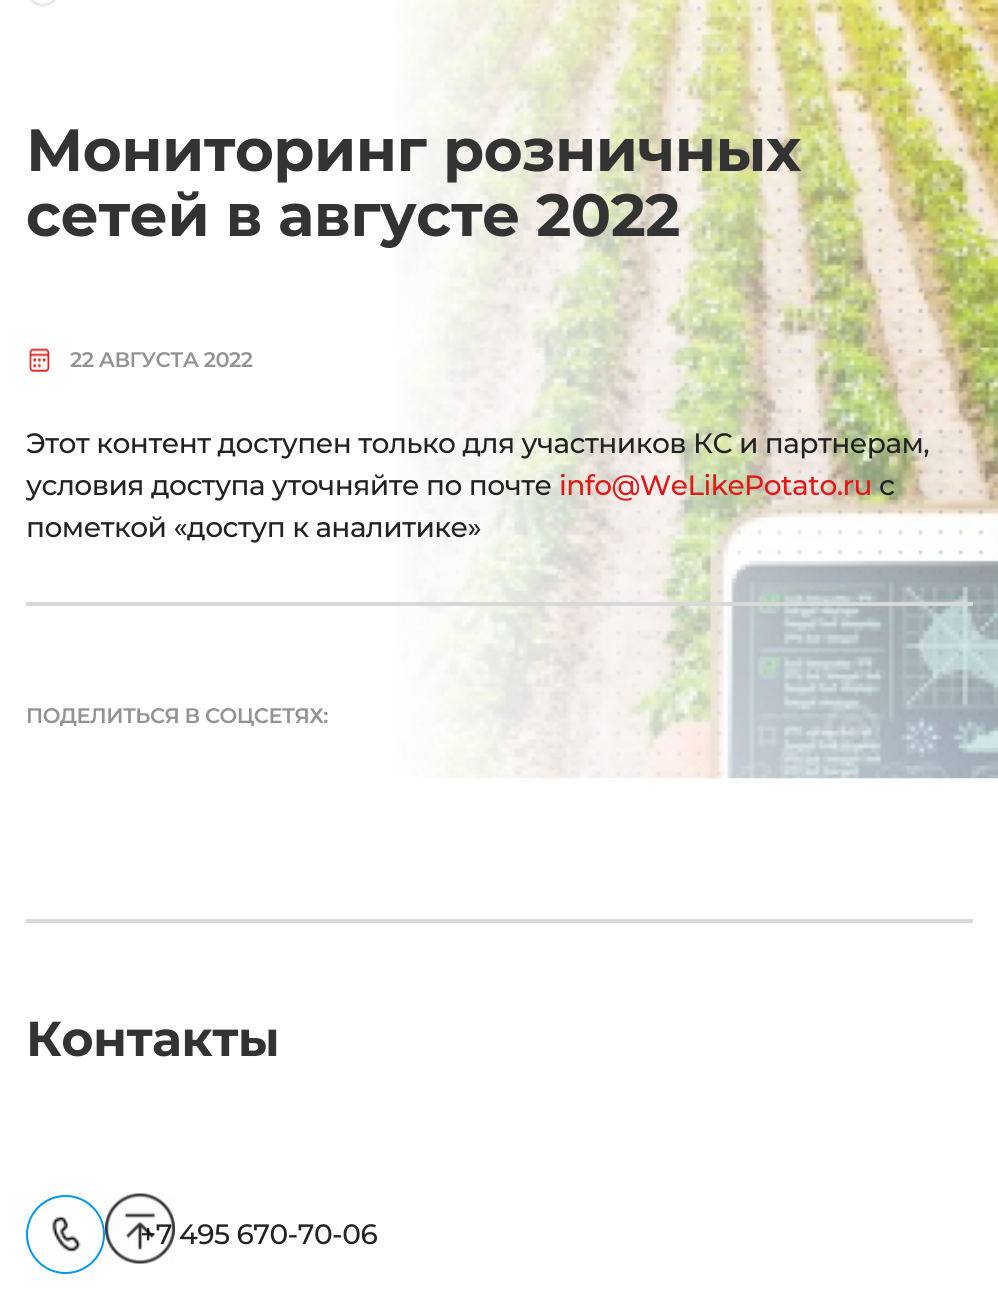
#include <cairo/cairo.h>
#include <math.h>
#include <stddef.h>

static cairo_t *cr;

static void rgb(unsigned color)
{
	cairo_set_source_rgb(cr, (color >> 16) / 255.0, (color >> 8 & 255) / 255.0, (color & 255) / 255.0);
}

static void tracked(double x, double y, const char *s, double letter, double word)
{
	cairo_move_to(cr, x, y);
	while (*s) {
		char ch[5] = {0};
		int n = 0;
		do ch[n++] = *s++; while ((*s & 0xC0) == 0x80);
		cairo_show_text(cr, ch);
		cairo_rel_move_to(cr, letter + word * (*ch == ' '), 0);
	}
}

static void image(const char *path, double x, double y, double w, double h)
{
	cairo_surface_t *image = cairo_image_surface_create_from_png(path);
	cairo_save(cr);
	cairo_set_source_surface(cr, image, x, y);
	cairo_rectangle(cr, x, y, w, h);
	cairo_fill(cr);
	cairo_restore(cr);
	cairo_surface_destroy(image);
}

int main(void) {
	cairo_surface_t *surface = cairo_image_surface_create(CAIRO_FORMAT_RGB24, 998, 1298);
	cr = cairo_create(surface);
	cairo_font_options_t *options = cairo_font_options_create();
	cairo_font_options_set_hint_metrics(options, CAIRO_HINT_METRICS_OFF);
	cairo_font_options_set_hint_style(options, CAIRO_HINT_STYLE_NONE);
	cairo_set_font_options(cr, options);
	cairo_set_miter_limit(cr, 4);
	rgb(0xffffff);
	cairo_paint(cr);
	image("img/1.png", 396, 0, 602, 779);
	image("img/2.png", 29, 0, 27, 7);
	image("img/3.png", 29, 348, 21, 24);
	rgb(0xd9d9d9);
	cairo_rectangle(cr, 26, 602, 947, 4);
	cairo_fill(cr);
	cairo_rectangle(cr, 26, 919, 947, 4);
	cairo_fill(cr);
	cairo_arc(cr, 65.5, 1234.5, 38.5, 0, 2 * M_PI);
	rgb(0x0098ee);
	cairo_stroke(cr);
	image("img/4.png", 52, 1215, 29, 38);
	cairo_select_font_face(cr, "Montserrat", CAIRO_FONT_SLANT_NORMAL, CAIRO_FONT_WEIGHT_BOLD);
	cairo_set_font_size(cr, 59.5);
	rgb(0x333333);
	tracked(26, 171, "Мониторинг розничных", -0.53, 0);
	tracked(26, 236, "сетей в августе 2022", -0.53, 0);
	cairo_select_font_face(cr, "Montserrat SemiBold", CAIRO_FONT_SLANT_NORMAL, CAIRO_FONT_WEIGHT_NORMAL);
	cairo_set_font_size(cr, 21);
	rgb(0x939393);
	tracked(70, 367, "22 АВГУСТА 2022", -0.53, 0);
	cairo_select_font_face(cr, "Montserrat Medium", CAIRO_FONT_SLANT_NORMAL, CAIRO_FONT_WEIGHT_NORMAL);
	cairo_set_font_size(cr, 28);
	rgb(0x222222);
	tracked(26, 453, "Этот контент доступен только для участников КС и партнерам,", -0.53, 0);
	tracked(26, 495, "условия доступа уточняйте по почте", -0.53, 0);
	rgb(0xe01919);
	tracked(559, 495, "info@WeLikePotato.ru", -0.53, 0);
	rgb(0x222222);
	tracked(879, 495, "с", -0.53, 0);
	tracked(26, 537, "пометкой «доступ к аналитике»", -0.53, 0);
	cairo_select_font_face(cr, "Montserrat SemiBold", CAIRO_FONT_SLANT_NORMAL, CAIRO_FONT_WEIGHT_NORMAL);
	cairo_set_font_size(cr, 21);
	rgb(0x939393);
	tracked(26, 723, "ПОДЕЛИТЬСЯ В СОЦСЕТЯХ:", -0.53, 0);
	cairo_select_font_face(cr, "Montserrat", CAIRO_FONT_SLANT_NORMAL, CAIRO_FONT_WEIGHT_BOLD);
	cairo_set_font_size(cr, 49);
	rgb(0x333333);
	tracked(26, 1056, "Контакты", -0.53, 0);
	cairo_select_font_face(cr, "Montserrat Medium", CAIRO_FONT_SLANT_NORMAL, CAIRO_FONT_WEIGHT_NORMAL);
	cairo_set_font_size(cr, 28);
	rgb(0x222222);
	tracked(140, 1244, "+7 495 670-70-06", -0.53, 0);
	image("img/5.png", 105, 1193, 70, 71);
	cairo_surface_write_to_png(surface, "page.png");
	cairo_font_options_destroy(options);
	cairo_destroy(cr);
	cairo_surface_destroy(surface);
	return 0;
}
